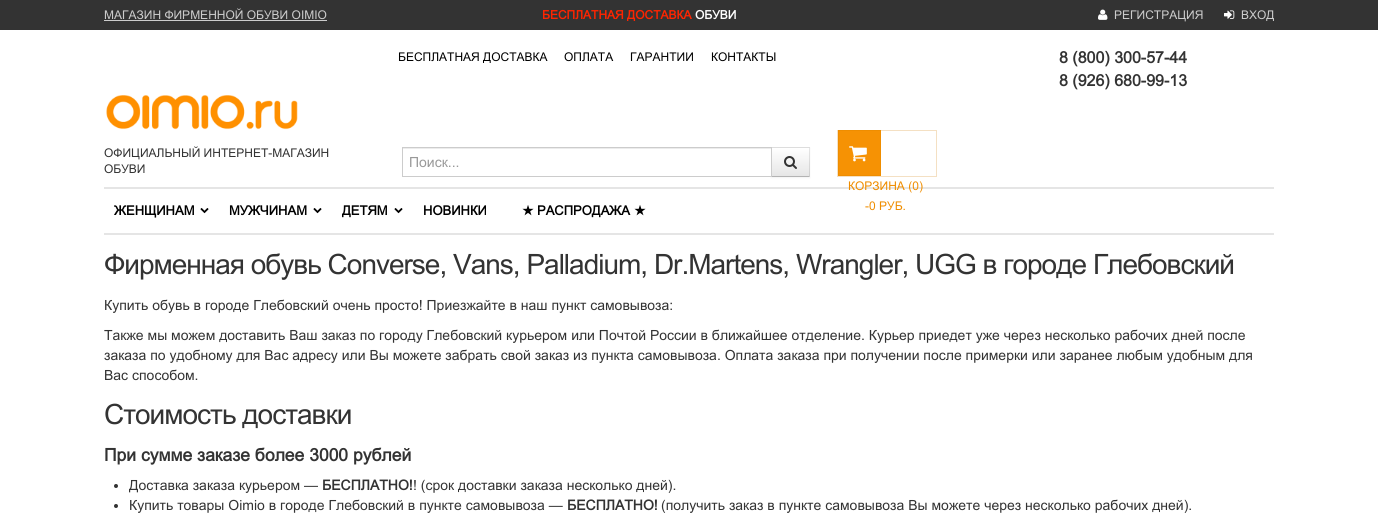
#include <cairo/cairo.h>
#include <math.h>
#include <stddef.h>

typedef struct { double x, y; const char *s; } line_t;
typedef struct { double x, y, w, h; unsigned color; } box_t;
static cairo_t *cr;

static void rgb(unsigned color)
{
	cairo_set_source_rgb(cr, (color >> 16) / 255.0, (color >> 8 & 255) / 255.0, (color & 255) / 255.0);
}

static void tracked(double x, double y, const char *s, double letter, double word)
{
	cairo_move_to(cr, x, y);
	while (*s) {
		char ch[5] = {0};
		int n = 0;
		do ch[n++] = *s++; while ((*s & 0xC0) == 0x80);
		cairo_show_text(cr, ch);
		cairo_rel_move_to(cr, letter + word * (*ch == ' '), 0);
	}
}

static void rrect(double x, double y, double w, double h, double r)
{
	cairo_new_sub_path(cr);
	cairo_arc(cr, x + w - r, y + h - r, r, 0, M_PI / 2);
	cairo_arc(cr, x + r, y + h - r, r, M_PI / 2, M_PI);
	cairo_arc(cr, x + r, y + r, r, M_PI, 1.5 * M_PI);
	cairo_arc(cr, x + w - r, y + r, r, 1.5 * M_PI, 2 * M_PI);
	cairo_close_path(cr);
}

static void soft_shadow(double x, double y, double w, double h, double r, double blur, double alpha)
{
	cairo_push_group_with_content(cr, CAIRO_CONTENT_ALPHA);
	cairo_set_operator(cr, CAIRO_OPERATOR_SOURCE);
	for (int i = 15; i >= -15 && fmin(w, h) + blur * i / 3 > 0; i -= 2) {
		double e = blur * i / 6;
		cairo_set_source_rgba(cr, 0, 0, 0, alpha * erfc((i - 1) / 8.5) / 2);
		rrect(x - e, y - e, w + 2 * e, h + 2 * e, fmax(0, fmin(r + e + blur * .6, fmin(w, h) / 2 + e)));
		cairo_fill(cr);
	}
	cairo_pattern_t *soft = cairo_pop_group(cr);
	cairo_mask(cr, soft);
	cairo_pattern_destroy(soft);
}

static void image(const char *path, double x, double y, double w, double h)
{
	cairo_surface_t *image = cairo_image_surface_create_from_png(path);
	cairo_save(cr);
	cairo_set_source_surface(cr, image, x, y);
	cairo_rectangle(cr, x, y, w, h);
	cairo_fill(cr);
	cairo_restore(cr);
	cairo_surface_destroy(image);
}

int main(void) {
	cairo_surface_t *surface = cairo_image_surface_create(CAIRO_FORMAT_RGB24, 1378, 522);
	cr = cairo_create(surface);
	cairo_font_options_t *options = cairo_font_options_create();
	cairo_font_options_set_hint_metrics(options, CAIRO_HINT_METRICS_OFF);
	cairo_font_options_set_hint_style(options, CAIRO_HINT_STYLE_NONE);
	cairo_set_font_options(cr, options);
	cairo_set_miter_limit(cr, 4);
	cairo_pattern_t *gradient;
	rgb(0xffffff);
	cairo_paint(cr);
	rgb(0x333333);
	cairo_rectangle(cr, 0, 0, 1378, 30);
	cairo_fill(cr);
	rgb(0xcccccc);
	cairo_rectangle(cr, 104, 20, 223, 1);
	cairo_fill(cr);
	image("img/1.png", 1098, 9, 10, 11);
	image("img/2.png", 1224, 10, 11, 9);
	image("img/3.png", 106, 95, 192, 35);
	rgb(0x000000);
	soft_shadow(771, 148, 39, 30, 0, 1, 0.05);
	{
		static const box_t items[] = {
			{770, 149, 1, 27, 0xffffff},
			{403, 148, 368, 1, 0xececec},
			{809, 147, 1, 2, 0xf5f5f5},
		};
		for (size_t i = 0; i < sizeof items / sizeof *items; i++) {
			rgb(items[i].color);
			cairo_rectangle(cr, items[i].x, items[i].y, items[i].w, items[i].h);
			cairo_fill(cr);
		}
	}
	rgb(0xdddddd);
	cairo_new_path(cr);
	cairo_move_to(cr, 771, 147);
	cairo_line_to(cr, 810, 147);
	cairo_line_to(cr, 809, 148);
	cairo_line_to(cr, 772, 148);
	cairo_close_path(cr);
	cairo_fill(cr);
	gradient = cairo_pattern_create_linear(791, 148, 791, 176);
	cairo_pattern_add_color_stop_rgba(gradient, 0, 1, 1, 1, 1);
	cairo_pattern_add_color_stop_rgba(gradient, 1, 0.902, 0.902, 0.902, 1);
	cairo_set_source(cr, gradient);
	cairo_pattern_destroy(gradient);
	cairo_rectangle(cr, 772, 148, 38, 28);
	cairo_fill(cr);
	cairo_set_source_rgba(cr, 0, 0, 0, 0.1);
	cairo_new_path(cr);
	cairo_move_to(cr, 810, 147);
	cairo_line_to(cr, 810, 177);
	cairo_line_to(cr, 809, 176);
	cairo_line_to(cr, 809, 148);
	cairo_close_path(cr);
	cairo_fill(cr);
	rgb(0xb3b3b3);
	cairo_new_path(cr);
	cairo_move_to(cr, 810, 177);
	cairo_line_to(cr, 771, 177);
	cairo_line_to(cr, 772, 176);
	cairo_line_to(cr, 809, 176);
	cairo_close_path(cr);
	cairo_fill(cr);
	cairo_rectangle(cr, 402.5, 147.5, 369, 29);
	rgb(0xcccccc);
	cairo_set_line_width(cr, 1);
	cairo_stroke(cr);
	image("img/4.png", 784, 156, 13, 13);
	cairo_rectangle(cr, 837.5, 130.5, 99, 46);
	rgb(0xf4e0c3);
	cairo_stroke(cr);
	rgb(0xf69204);
	cairo_rectangle(cr, 838.5, 130.5, 42, 45);
	cairo_fill_preserve(cr);
	rgb(0xef8d00);
	cairo_stroke(cr);
	image("img/5.png", 849, 146, 18, 16);
	rgb(0xe5e5e5);
	cairo_rectangle(cr, 104, 187, 1170, 2);
	cairo_fill(cr);
	cairo_rectangle(cr, 104, 233, 1170, 2);
	cairo_fill(cr);
	image("img/6.png", 200, 208, 9, 6);
	image("img/6.png", 313, 208, 9, 6);
	image("img/6.png", 394, 208, 9, 6);
	rgb(0x333333);
	cairo_arc(cr, 116, 486, 2, 0, 2 * M_PI);
	cairo_fill(cr);
	cairo_arc(cr, 116, 506, 2, 0, 2 * M_PI);
	cairo_fill(cr);
	cairo_select_font_face(cr, "Arial", CAIRO_FONT_SLANT_NORMAL, CAIRO_FONT_WEIGHT_NORMAL);
	cairo_set_font_size(cr, 12);
	rgb(0xcccccc);
	cairo_move_to(cr, 104, 19);
	cairo_show_text(cr, "МАГАЗИН ФИРМЕННОЙ ОБУВИ OIMIO");
	cairo_select_font_face(cr, "Arial", CAIRO_FONT_SLANT_NORMAL, CAIRO_FONT_WEIGHT_BOLD);
	rgb(0xff2400);
	cairo_move_to(cr, 542, 19);
	cairo_show_text(cr, "БЕСПЛАТНАЯ ДОСТАВКА");
	rgb(0xffffff);
	cairo_move_to(cr, 695, 19);
	cairo_show_text(cr, "ОБУВИ");
	cairo_select_font_face(cr, "Arial", CAIRO_FONT_SLANT_NORMAL, CAIRO_FONT_WEIGHT_NORMAL);
	rgb(0xcccccc);
	cairo_move_to(cr, 1114, 19);
	cairo_show_text(cr, "РЕГИСТРАЦИЯ");
	cairo_move_to(cr, 1241, 19);
	cairo_show_text(cr, "ВХОД");
	rgb(0x333333);
	cairo_move_to(cr, 104, 157);
	cairo_show_text(cr, "ОФИЦИАЛЬНЫЙ ИНТЕРНЕТ-МАГАЗИН");
	cairo_move_to(cr, 104, 173);
	cairo_show_text(cr, "ОБУВИ");
	rgb(0x000000);
	{
		static const line_t items[] = {
			{398, 61, "БЕСПЛАТНАЯ ДОСТАВКА"},
			{564, 61, "ОПЛАТА"},
			{630, 61, "ГАРАНТИИ"},
			{711, 61, "КОНТАКТЫ"},
		};
		for (size_t i = 0; i < sizeof items / sizeof *items; i++) {
			cairo_move_to(cr, items[i].x, items[i].y);
			cairo_show_text(cr, items[i].s);
		}
	}
	cairo_set_font_size(cr, 14);
	rgb(0x999999);
	cairo_move_to(cr, 409, 167);
	cairo_show_text(cr, "Поиск...");
	cairo_select_font_face(cr, "Arial", CAIRO_FONT_SLANT_NORMAL, CAIRO_FONT_WEIGHT_BOLD);
	cairo_set_font_size(cr, 16);
	rgb(0x333333);
	cairo_move_to(cr, 1059, 63);
	cairo_show_text(cr, "8 (800) 300-57-44");
	cairo_move_to(cr, 1059, 86);
	cairo_show_text(cr, "8 (926) 680-99-13");
	cairo_select_font_face(cr, "Arial", CAIRO_FONT_SLANT_NORMAL, CAIRO_FONT_WEIGHT_NORMAL);
	cairo_set_font_size(cr, 12);
	rgb(0xef8d00);
	cairo_move_to(cr, 848, 190);
	cairo_show_text(cr, "КОРЗИНА (0)");
	cairo_move_to(cr, 865, 210);
	cairo_show_text(cr, "-0 РУБ.");
	cairo_select_font_face(cr, "Arial", CAIRO_FONT_SLANT_NORMAL, CAIRO_FONT_WEIGHT_BOLD);
	cairo_set_font_size(cr, 13);
	rgb(0x000000);
	{
		static const line_t items[] = {
			{114, 215, "ЖЕНЩИНАМ"},
			{229, 215, "МУЖЧИНАМ"},
			{342, 215, "ДЕТЯМ"},
			{423, 215, "НОВИНКИ"},
		};
		for (size_t i = 0; i < sizeof items / sizeof *items; i++) {
			cairo_move_to(cr, items[i].x, items[i].y);
			cairo_show_text(cr, items[i].s);
		}
	}
	cairo_select_font_face(cr, "DejaVu Sans", CAIRO_FONT_SLANT_NORMAL, CAIRO_FONT_WEIGHT_BOLD);
	cairo_move_to(cr, 522, 215);
	cairo_show_text(cr, "★");
	cairo_select_font_face(cr, "Arial", CAIRO_FONT_SLANT_NORMAL, CAIRO_FONT_WEIGHT_BOLD);
	cairo_move_to(cr, 537, 215);
	cairo_show_text(cr, "РАСПРОДАЖА");
	cairo_select_font_face(cr, "DejaVu Sans", CAIRO_FONT_SLANT_NORMAL, CAIRO_FONT_WEIGHT_BOLD);
	cairo_move_to(cr, 634, 215);
	cairo_show_text(cr, "★");
	cairo_select_font_face(cr, "Arial", CAIRO_FONT_SLANT_NORMAL, CAIRO_FONT_WEIGHT_NORMAL);
	cairo_set_font_size(cr, 28);
	rgb(0x333333);
	tracked(104, 274, "Фирменная обувь Converse, Vans, Palladium, Dr.Martens, Wrangler, UGG в городе Глебовский", -1, 0);
	cairo_set_font_size(cr, 14);
	{
		static const line_t items[] = {
			{104, 310, "Купить обувь в городе Глебовский очень просто! Приезжайте в наш пункт самовывоза:"},
			{104, 340, "Также мы можем доставить Ваш заказ по городу Глебовский курьером или Почтой России в ближайшее отделение. Курьер приедет уже через несколько рабочих дней после"},
			{104, 360, "заказа по удобному для Вас адресу или Вы можете забрать свой заказ из пункта самовывоза. Оплата заказа при получении после примерки или заранее любым удобным для"},
			{104, 380, "Вас способом."},
		};
		for (size_t i = 0; i < sizeof items / sizeof *items; i++) {
			cairo_move_to(cr, items[i].x, items[i].y);
			cairo_show_text(cr, items[i].s);
		}
	}
	cairo_set_font_size(cr, 28);
	tracked(104, 424, "Стоимость доставки", -1, 0);
	cairo_select_font_face(cr, "Arial", CAIRO_FONT_SLANT_NORMAL, CAIRO_FONT_WEIGHT_BOLD);
	cairo_set_font_size(cr, 17.5);
	cairo_move_to(cr, 104, 461);
	cairo_show_text(cr, "При cумме заказе более 3000 рублей");
	cairo_select_font_face(cr, "Arial", CAIRO_FONT_SLANT_NORMAL, CAIRO_FONT_WEIGHT_NORMAL);
	cairo_set_font_size(cr, 14);
	cairo_move_to(cr, 129, 490);
	cairo_show_text(cr, "Доставка заказа курьером —");
	cairo_select_font_face(cr, "Arial", CAIRO_FONT_SLANT_NORMAL, CAIRO_FONT_WEIGHT_BOLD);
	cairo_move_to(cr, 322, 490);
	cairo_show_text(cr, "БЕСПЛАТНО!");
	cairo_select_font_face(cr, "Arial", CAIRO_FONT_SLANT_NORMAL, CAIRO_FONT_WEIGHT_NORMAL);
	cairo_move_to(cr, 413, 490);
	cairo_show_text(cr, "! (срок доставки заказа несколько дней).");
	cairo_move_to(cr, 129, 510);
	cairo_show_text(cr, "Купить товары Oimio в городе Глебовский в пункте самовывоза —");
	cairo_select_font_face(cr, "Arial", CAIRO_FONT_SLANT_NORMAL, CAIRO_FONT_WEIGHT_BOLD);
	cairo_move_to(cr, 567, 510);
	cairo_show_text(cr, "БЕСПЛАТНО!");
	cairo_select_font_face(cr, "Arial", CAIRO_FONT_SLANT_NORMAL, CAIRO_FONT_WEIGHT_NORMAL);
	cairo_move_to(cr, 661, 510);
	cairo_show_text(cr, "(получить заказ в пункте самовывоза Вы можете через несколько рабочих дней).");
	cairo_surface_write_to_png(surface, "page.png");
	cairo_font_options_destroy(options);
	cairo_destroy(cr);
	cairo_surface_destroy(surface);
	return 0;
}
